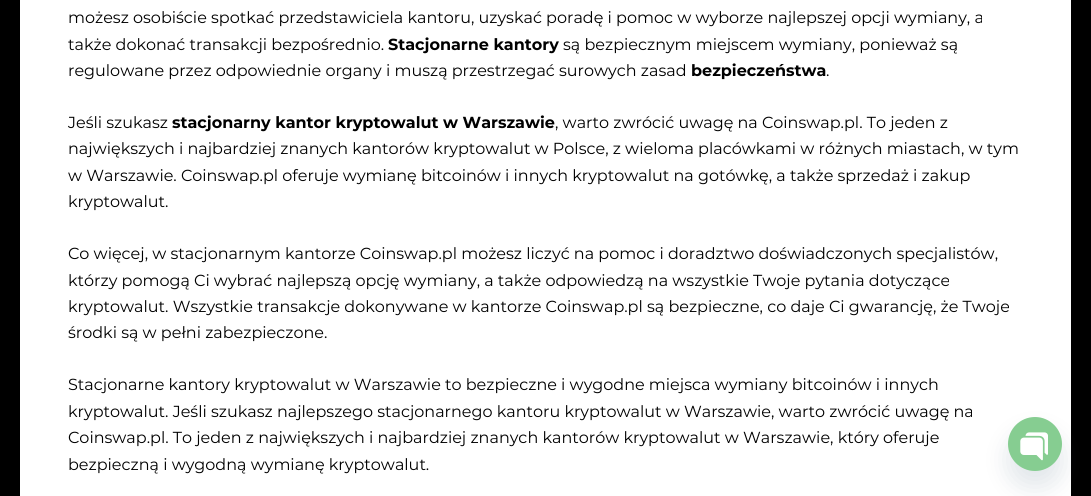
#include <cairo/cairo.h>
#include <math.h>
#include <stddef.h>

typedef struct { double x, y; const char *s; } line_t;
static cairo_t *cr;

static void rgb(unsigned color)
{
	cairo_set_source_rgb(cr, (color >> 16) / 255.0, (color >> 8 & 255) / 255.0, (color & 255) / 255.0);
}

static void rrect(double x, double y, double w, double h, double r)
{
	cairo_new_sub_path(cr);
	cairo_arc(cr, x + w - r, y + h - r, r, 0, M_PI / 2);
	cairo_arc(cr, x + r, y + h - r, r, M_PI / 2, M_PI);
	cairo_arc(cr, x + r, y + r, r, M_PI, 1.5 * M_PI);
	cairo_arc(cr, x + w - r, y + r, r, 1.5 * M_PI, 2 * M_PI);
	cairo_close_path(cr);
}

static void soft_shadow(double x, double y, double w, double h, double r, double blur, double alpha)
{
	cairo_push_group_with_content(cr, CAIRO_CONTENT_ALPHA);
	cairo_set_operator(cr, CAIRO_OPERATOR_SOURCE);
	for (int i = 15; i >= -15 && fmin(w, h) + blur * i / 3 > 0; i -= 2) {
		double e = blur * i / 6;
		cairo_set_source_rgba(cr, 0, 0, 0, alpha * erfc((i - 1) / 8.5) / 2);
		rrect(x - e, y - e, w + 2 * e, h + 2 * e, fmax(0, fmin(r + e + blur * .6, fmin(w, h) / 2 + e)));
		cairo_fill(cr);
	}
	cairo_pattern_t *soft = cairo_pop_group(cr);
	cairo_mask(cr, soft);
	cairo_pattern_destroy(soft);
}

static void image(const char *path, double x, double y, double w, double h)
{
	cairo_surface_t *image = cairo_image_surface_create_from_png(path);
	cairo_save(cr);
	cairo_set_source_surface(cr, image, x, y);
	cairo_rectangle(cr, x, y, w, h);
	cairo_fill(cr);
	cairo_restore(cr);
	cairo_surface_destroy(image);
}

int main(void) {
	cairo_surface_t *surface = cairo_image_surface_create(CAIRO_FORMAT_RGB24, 1091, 496);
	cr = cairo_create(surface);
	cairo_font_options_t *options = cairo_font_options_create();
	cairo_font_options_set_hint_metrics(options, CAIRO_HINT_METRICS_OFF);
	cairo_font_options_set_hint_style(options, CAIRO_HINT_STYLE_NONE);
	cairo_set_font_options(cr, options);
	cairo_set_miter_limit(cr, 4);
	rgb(0x000000);
	cairo_paint(cr);
	rgb(0xffffff);
	cairo_rectangle(cr, 20, 0, 1051, 496);
	cairo_fill(cr);
	rgb(0x49687e);
	soft_shadow(1008, 433, 54, 54, 27, 12, 0.16);
	image("img/1.png", 1008, 417, 54, 54);
	cairo_select_font_face(cr, "Montserrat", CAIRO_FONT_SLANT_NORMAL, CAIRO_FONT_WEIGHT_NORMAL);
	cairo_set_font_size(cr, 16);
	rgb(0x000000);
	cairo_move_to(cr, 68, 23);
	cairo_show_text(cr, "możesz osobiście spotkać przedstawiciela kantoru, uzyskać poradę i pomoc w wyborze najlepszej opcji wymiany, a");
	cairo_move_to(cr, 68, 50);
	cairo_show_text(cr, "także dokonać transakcji bezpośrednio.");
	cairo_select_font_face(cr, "Montserrat", CAIRO_FONT_SLANT_NORMAL, CAIRO_FONT_WEIGHT_BOLD);
	cairo_move_to(cr, 388, 50);
	cairo_show_text(cr, "Stacjonarne kantory");
	cairo_select_font_face(cr, "Montserrat", CAIRO_FONT_SLANT_NORMAL, CAIRO_FONT_WEIGHT_NORMAL);
	cairo_move_to(cr, 563, 50);
	cairo_show_text(cr, "są bezpiecznym miejscem wymiany, ponieważ są");
	cairo_move_to(cr, 68, 76);
	cairo_show_text(cr, "regulowane przez odpowiednie organy i muszą przestrzegać surowych zasad");
	cairo_select_font_face(cr, "Montserrat", CAIRO_FONT_SLANT_NORMAL, CAIRO_FONT_WEIGHT_BOLD);
	cairo_move_to(cr, 691, 76);
	cairo_show_text(cr, "bezpieczeństwa");
	cairo_select_font_face(cr, "Montserrat", CAIRO_FONT_SLANT_NORMAL, CAIRO_FONT_WEIGHT_NORMAL);
	cairo_move_to(cr, 826, 76);
	cairo_show_text(cr, ".");
	cairo_move_to(cr, 68, 128);
	cairo_show_text(cr, "Jeśli szukasz");
	cairo_select_font_face(cr, "Montserrat", CAIRO_FONT_SLANT_NORMAL, CAIRO_FONT_WEIGHT_BOLD);
	cairo_move_to(cr, 172, 128);
	cairo_show_text(cr, "stacjonarny kantor kryptowalut w Warszawie");
	cairo_select_font_face(cr, "Montserrat", CAIRO_FONT_SLANT_NORMAL, CAIRO_FONT_WEIGHT_NORMAL);
	{
		static const line_t items[] = {
			{555, 128, ", warto zwrócić uwagę na Coinswap.pl. To jeden z"},
			{68, 154, "największych i najbardziej znanych kantorów kryptowalut w Polsce, z wieloma placówkami w różnych miastach, w tym"},
			{68, 181, "w Warszawie. Coinswap.pl oferuje wymianę bitcoinów i innych kryptowalut na gotówkę, a także sprzedaż i zakup"},
			{68, 207, "kryptowalut."},
			{68, 259, "Co więcej, w stacjonarnym kantorze Coinswap.pl możesz liczyć na pomoc i doradztwo doświadczonych specjalistów,"},
			{68, 286, "którzy pomogą Ci wybrać najlepszą opcję wymiany, a także odpowiedzą na wszystkie Twoje pytania dotyczące"},
			{68, 312, "kryptowalut. Wszystkie transakcje dokonywane w kantorze Coinswap.pl są bezpieczne, co daje Ci gwarancję, że Twoje"},
			{68, 338, "środki są w pełni zabezpieczone."},
			{68, 390, "Stacjonarne kantory kryptowalut w Warszawie to bezpieczne i wygodne miejsca wymiany bitcoinów i innych"},
			{68, 417, "kryptowalut. Jeśli szukasz najlepszego stacjonarnego kantoru kryptowalut w Warszawie, warto zwrócić uwagę na"},
			{68, 443, "Coinswap.pl. To jeden z największych i najbardziej znanych kantorów kryptowalut w Warszawie, który oferuje"},
			{68, 470, "bezpieczną i wygodną wymianę kryptowalut."},
		};
		for (size_t i = 0; i < sizeof items / sizeof *items; i++) {
			cairo_move_to(cr, items[i].x, items[i].y);
			cairo_show_text(cr, items[i].s);
		}
	}
	cairo_surface_write_to_png(surface, "page.png");
	cairo_font_options_destroy(options);
	cairo_destroy(cr);
	cairo_surface_destroy(surface);
	return 0;
}
